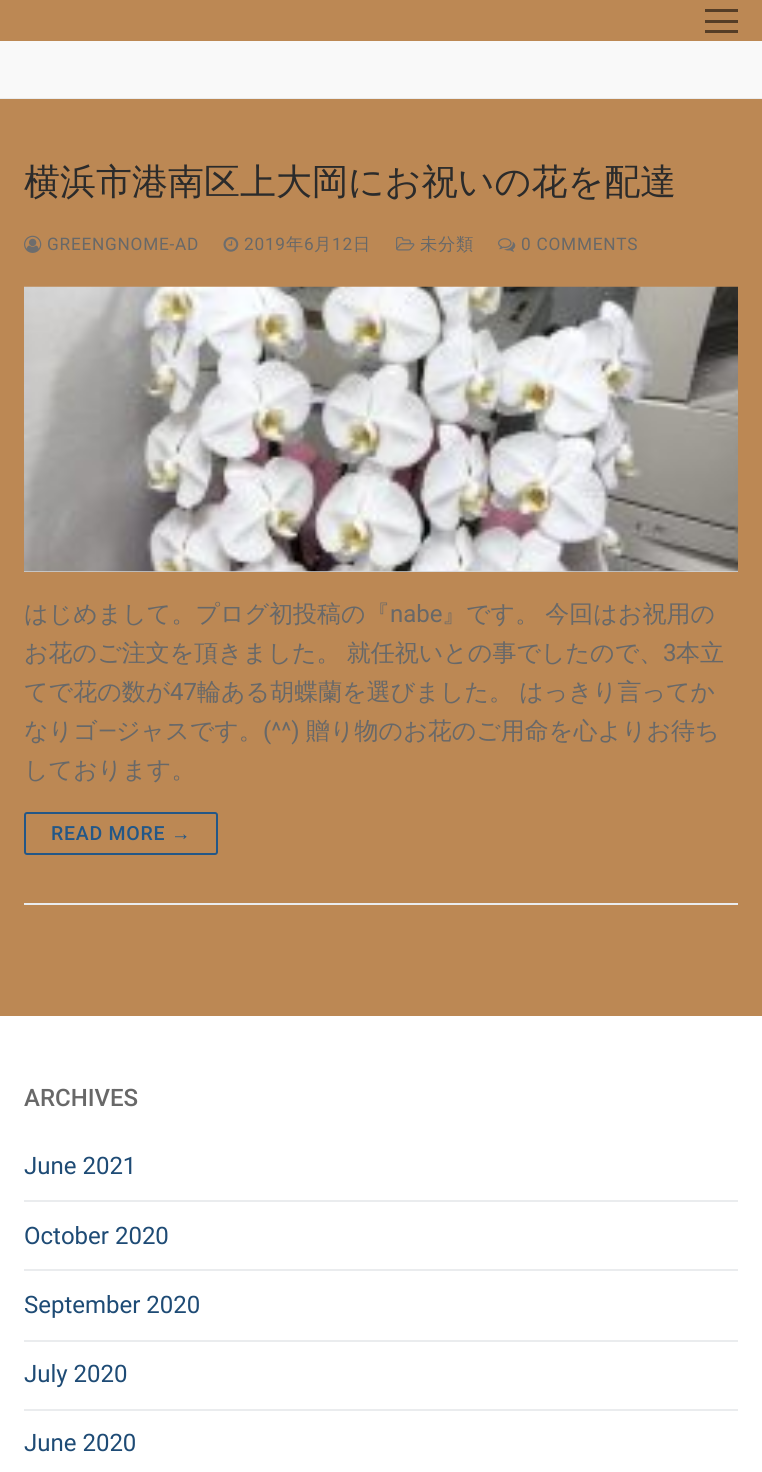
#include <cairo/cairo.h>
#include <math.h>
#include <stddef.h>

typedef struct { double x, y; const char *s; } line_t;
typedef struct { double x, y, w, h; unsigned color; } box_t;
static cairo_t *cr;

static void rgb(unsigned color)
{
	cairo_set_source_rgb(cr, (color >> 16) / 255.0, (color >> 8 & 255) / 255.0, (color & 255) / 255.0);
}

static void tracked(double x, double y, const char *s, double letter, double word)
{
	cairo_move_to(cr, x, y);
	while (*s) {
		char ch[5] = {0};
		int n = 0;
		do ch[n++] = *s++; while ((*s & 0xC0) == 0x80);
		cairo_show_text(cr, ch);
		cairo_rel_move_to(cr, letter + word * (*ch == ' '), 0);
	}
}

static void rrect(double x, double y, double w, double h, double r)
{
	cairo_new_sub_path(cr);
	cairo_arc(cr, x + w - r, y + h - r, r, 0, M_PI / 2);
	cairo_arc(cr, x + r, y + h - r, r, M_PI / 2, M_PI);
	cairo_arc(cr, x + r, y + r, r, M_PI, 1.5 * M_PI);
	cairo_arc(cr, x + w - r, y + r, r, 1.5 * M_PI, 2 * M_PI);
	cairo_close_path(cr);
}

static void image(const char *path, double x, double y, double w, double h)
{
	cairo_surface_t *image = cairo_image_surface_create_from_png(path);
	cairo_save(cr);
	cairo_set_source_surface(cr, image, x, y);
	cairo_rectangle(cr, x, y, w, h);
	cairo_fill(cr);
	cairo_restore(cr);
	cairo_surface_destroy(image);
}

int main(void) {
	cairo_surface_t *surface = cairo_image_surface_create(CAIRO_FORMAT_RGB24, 762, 1472);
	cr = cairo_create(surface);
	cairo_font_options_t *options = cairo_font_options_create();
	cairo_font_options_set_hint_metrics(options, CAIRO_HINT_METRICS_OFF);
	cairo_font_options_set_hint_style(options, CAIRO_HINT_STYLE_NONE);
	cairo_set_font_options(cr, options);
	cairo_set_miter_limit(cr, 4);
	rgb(0xbc8854);
	cairo_paint(cr);
	{
		static const box_t items[] = {
			{705, 20, 33, 3, 0x553d26},
			{705, 9, 33, 3, 0x553d26},
			{705, 30, 33, 3, 0x553d26},
			{0, 41, 762, 57, 0xf9f9f9},
			{0, 98, 762, 1, 0xeaecee},
			{0, 1016, 762, 456, 0xffffff},
			{24, 903, 714, 2, 0xeaecee},
		};
		for (size_t i = 0; i < sizeof items / sizeof *items; i++) {
			rgb(items[i].color);
			cairo_rectangle(cr, items[i].x, items[i].y, items[i].w, items[i].h);
			cairo_fill(cr);
		}
	}
	image("img/1.png", 24, 235, 18, 18);
	image("img/2.png", 223, 237, 16, 15);
	image("img/3.png", 396, 236, 19, 15);
	image("img/4.png", 498, 238, 18, 14);
	rgb(0xd5d5d5);
	cairo_rectangle(cr, 24, 571, 714, 1);
	cairo_fill(cr);
	image("img/5.png", 24, 286, 714, 286);
	rrect(25, 813, 192, 41, 2);
	rgb(0x235787);
	cairo_stroke(cr);
	{
		static const box_t items[] = {
			{24, 1200, 714, 2, 0xeaecee},
			{24, 1269, 714, 2, 0xeaecee},
			{24, 1340, 714, 2, 0xeaecee},
			{24, 1409, 714, 2, 0xeaecee},
		};
		for (size_t i = 0; i < sizeof items / sizeof *items; i++) {
			rgb(items[i].color);
			cairo_rectangle(cr, items[i].x, items[i].y, items[i].w, items[i].h);
			cairo_fill(cr);
		}
	}
	cairo_select_font_face(cr, "WenQuanYi Zen Hei Medium", CAIRO_FONT_SLANT_NORMAL, CAIRO_FONT_WEIGHT_NORMAL);
	cairo_set_font_size(cr, 36);
	rgb(0x2b2b2b);
	cairo_move_to(cr, 24, 194);
	cairo_show_text(cr, "横浜市港南区上大岡にお祝いの花を配達");
	cairo_select_font_face(cr, "Roboto", CAIRO_FONT_SLANT_NORMAL, CAIRO_FONT_WEIGHT_NORMAL);
	cairo_set_font_size(cr, 17.25);
	rgb(0x686868);
	tracked(47, 250, "GREENGNOME-AD", 0.75, 0);
	tracked(244, 250, "2019", 0.75, 0);
	cairo_select_font_face(cr, "WenQuanYi Zen Hei Medium", CAIRO_FONT_SLANT_NORMAL, CAIRO_FONT_WEIGHT_NORMAL);
	tracked(286, 250, "年", 0.75, 0);
	cairo_select_font_face(cr, "Roboto", CAIRO_FONT_SLANT_NORMAL, CAIRO_FONT_WEIGHT_NORMAL);
	tracked(304, 250, "6", 0.75, 0);
	cairo_select_font_face(cr, "WenQuanYi Zen Hei Medium", CAIRO_FONT_SLANT_NORMAL, CAIRO_FONT_WEIGHT_NORMAL);
	tracked(314, 250, "月", 0.75, 0);
	cairo_select_font_face(cr, "Roboto", CAIRO_FONT_SLANT_NORMAL, CAIRO_FONT_WEIGHT_NORMAL);
	tracked(332, 250, "12", 0.75, 0);
	cairo_select_font_face(cr, "WenQuanYi Zen Hei Medium", CAIRO_FONT_SLANT_NORMAL, CAIRO_FONT_WEIGHT_NORMAL);
	tracked(353, 250, "日", 0.75, 0);
	tracked(420, 250, "未分類", 0.75, 0);
	cairo_select_font_face(cr, "Roboto", CAIRO_FONT_SLANT_NORMAL, CAIRO_FONT_WEIGHT_NORMAL);
	tracked(521, 250, "0 COMMENTS", 0.75, 0);
	cairo_select_font_face(cr, "WenQuanYi Zen Hei Medium", CAIRO_FONT_SLANT_NORMAL, CAIRO_FONT_WEIGHT_NORMAL);
	cairo_set_font_size(cr, 24);
	cairo_move_to(cr, 24, 622);
	cairo_show_text(cr, "はじめまして。プログ初投稿の『");
	cairo_select_font_face(cr, "Roboto", CAIRO_FONT_SLANT_NORMAL, CAIRO_FONT_WEIGHT_NORMAL);
	cairo_move_to(cr, 390, 622);
	cairo_show_text(cr, "nabe");
	cairo_select_font_face(cr, "WenQuanYi Zen Hei Medium", CAIRO_FONT_SLANT_NORMAL, CAIRO_FONT_WEIGHT_NORMAL);
	tracked(442, 622, "』です。 今回はお祝用の", 0, -1);
	tracked(24, 661, "お花のご注文を頂きました。 就任祝いとの事でしたので、", 0, -1);
	cairo_select_font_face(cr, "Roboto", CAIRO_FONT_SLANT_NORMAL, CAIRO_FONT_WEIGHT_NORMAL);
	cairo_move_to(cr, 663, 661);
	cairo_show_text(cr, "3");
	cairo_select_font_face(cr, "WenQuanYi Zen Hei Medium", CAIRO_FONT_SLANT_NORMAL, CAIRO_FONT_WEIGHT_NORMAL);
	cairo_move_to(cr, 676, 661);
	cairo_show_text(cr, "本立");
	cairo_move_to(cr, 24, 700);
	cairo_show_text(cr, "てで花の数が");
	cairo_select_font_face(cr, "Roboto", CAIRO_FONT_SLANT_NORMAL, CAIRO_FONT_WEIGHT_NORMAL);
	cairo_move_to(cr, 170, 700);
	cairo_show_text(cr, "47");
	cairo_select_font_face(cr, "WenQuanYi Zen Hei Medium", CAIRO_FONT_SLANT_NORMAL, CAIRO_FONT_WEIGHT_NORMAL);
	tracked(197, 700, "輪ある胡蝶蘭を選びました。 はっきり言ってか", 0, -1);
	cairo_move_to(cr, 24, 739);
	cairo_show_text(cr, "なりゴ");
	cairo_select_font_face(cr, "Roboto", CAIRO_FONT_SLANT_NORMAL, CAIRO_FONT_WEIGHT_NORMAL);
	cairo_move_to(cr, 98, 739);
	cairo_show_text(cr, "―");
	cairo_select_font_face(cr, "WenQuanYi Zen Hei Medium", CAIRO_FONT_SLANT_NORMAL, CAIRO_FONT_WEIGHT_NORMAL);
	cairo_move_to(cr, 116, 739);
	cairo_show_text(cr, "ジャスです。");
	cairo_select_font_face(cr, "Roboto", CAIRO_FONT_SLANT_NORMAL, CAIRO_FONT_WEIGHT_NORMAL);
	cairo_move_to(cr, 263, 739);
	cairo_show_text(cr, "(^^)");
	cairo_select_font_face(cr, "WenQuanYi Zen Hei Medium", CAIRO_FONT_SLANT_NORMAL, CAIRO_FONT_WEIGHT_NORMAL);
	cairo_move_to(cr, 306, 739);
	cairo_show_text(cr, "贈り物のお花のご用命を心よりお待ち");
	cairo_move_to(cr, 24, 778);
	cairo_show_text(cr, "しております。");
	cairo_select_font_face(cr, "Roboto Medium", CAIRO_FONT_SLANT_NORMAL, CAIRO_FONT_WEIGHT_NORMAL);
	cairo_set_font_size(cr, 19.5);
	rgb(0x235787);
	tracked(51, 840, "READ MORE", 0.75, 0);
	cairo_select_font_face(cr, "Liberation Sans", CAIRO_FONT_SLANT_NORMAL, CAIRO_FONT_WEIGHT_NORMAL);
	tracked(171, 840, "→", 0.75, 0);
	cairo_select_font_face(cr, "Roboto Medium", CAIRO_FONT_SLANT_NORMAL, CAIRO_FONT_WEIGHT_NORMAL);
	cairo_set_font_size(cr, 24);
	rgb(0x686868);
	cairo_move_to(cr, 24, 1106);
	cairo_show_text(cr, "ARCHIVES");
	cairo_select_font_face(cr, "Roboto", CAIRO_FONT_SLANT_NORMAL, CAIRO_FONT_WEIGHT_NORMAL);
	rgb(0x1e4b75);
	{
		static const line_t items[] = {
			{24, 1174, "June 2021"},
			{24, 1244, "October 2020"},
			{24, 1313, "September 2020"},
			{24, 1382, "July 2020"},
			{24, 1451, "June 2020"},
		};
		for (size_t i = 0; i < sizeof items / sizeof *items; i++) {
			cairo_move_to(cr, items[i].x, items[i].y);
			cairo_show_text(cr, items[i].s);
		}
	}
	cairo_surface_write_to_png(surface, "page.png");
	cairo_font_options_destroy(options);
	cairo_destroy(cr);
	cairo_surface_destroy(surface);
	return 0;
}
